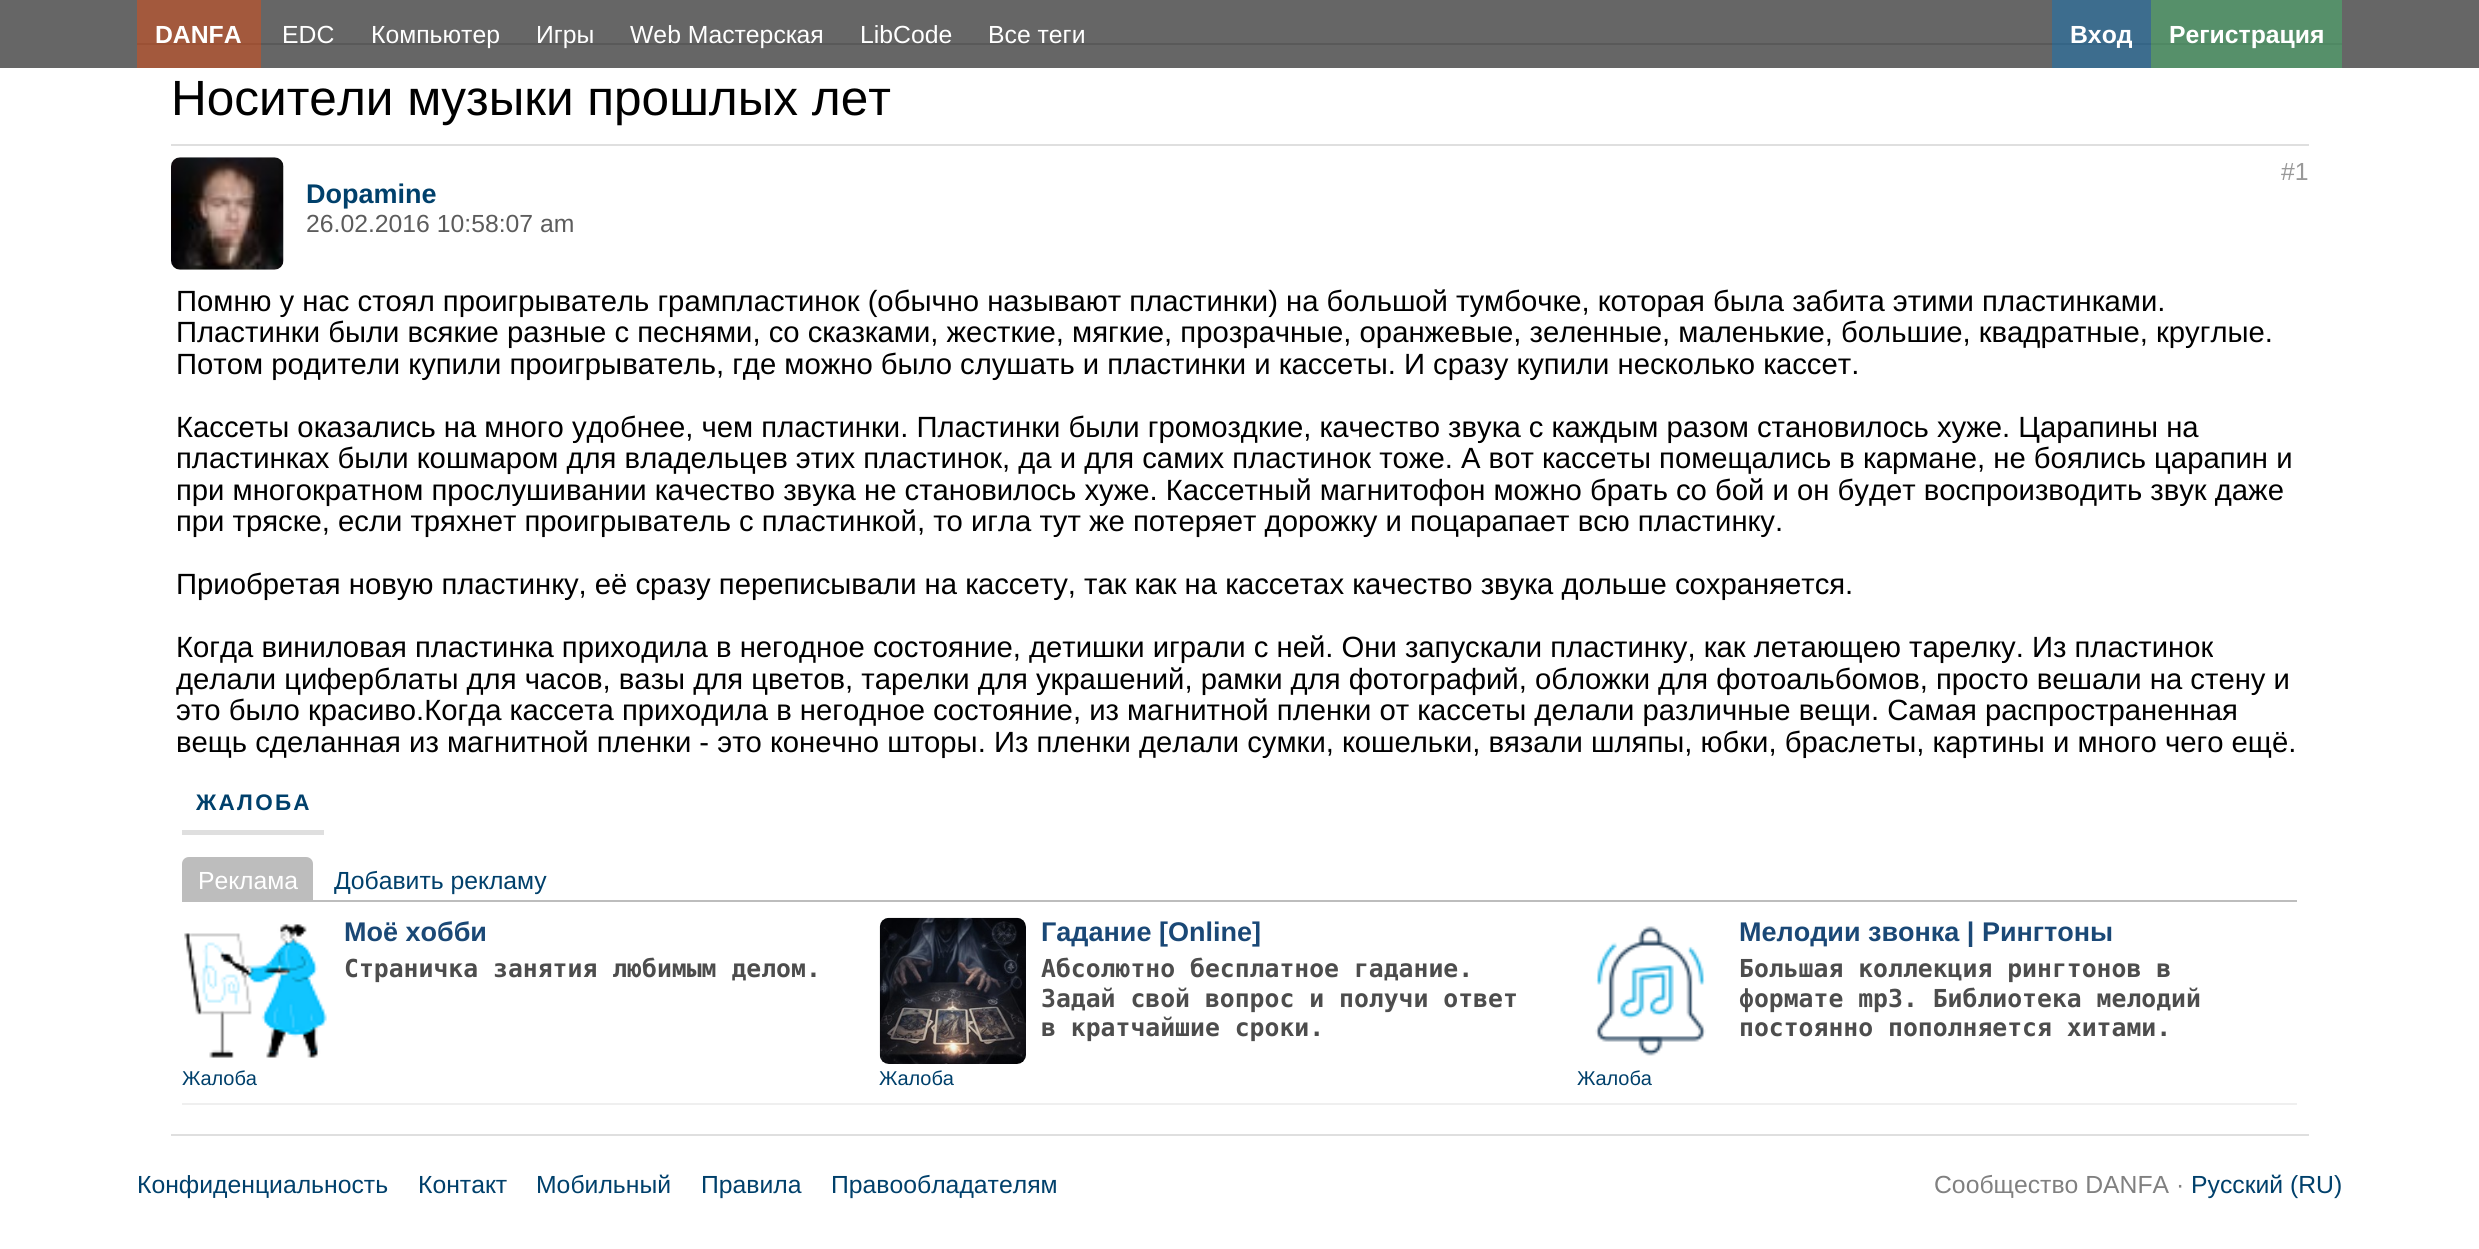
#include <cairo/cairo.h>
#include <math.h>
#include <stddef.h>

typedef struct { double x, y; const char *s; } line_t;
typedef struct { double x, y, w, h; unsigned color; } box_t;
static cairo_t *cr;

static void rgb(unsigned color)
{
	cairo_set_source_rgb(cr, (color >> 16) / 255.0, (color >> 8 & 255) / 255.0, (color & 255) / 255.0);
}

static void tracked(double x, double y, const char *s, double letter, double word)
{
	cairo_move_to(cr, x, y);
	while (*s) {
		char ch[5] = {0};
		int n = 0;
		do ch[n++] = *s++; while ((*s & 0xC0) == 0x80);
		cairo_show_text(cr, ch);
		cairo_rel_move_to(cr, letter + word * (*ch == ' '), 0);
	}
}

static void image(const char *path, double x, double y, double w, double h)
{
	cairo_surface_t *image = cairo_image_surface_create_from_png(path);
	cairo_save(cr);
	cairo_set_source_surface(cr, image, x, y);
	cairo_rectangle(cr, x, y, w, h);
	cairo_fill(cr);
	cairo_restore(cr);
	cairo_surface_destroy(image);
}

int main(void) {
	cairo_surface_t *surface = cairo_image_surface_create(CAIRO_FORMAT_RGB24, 2479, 1249);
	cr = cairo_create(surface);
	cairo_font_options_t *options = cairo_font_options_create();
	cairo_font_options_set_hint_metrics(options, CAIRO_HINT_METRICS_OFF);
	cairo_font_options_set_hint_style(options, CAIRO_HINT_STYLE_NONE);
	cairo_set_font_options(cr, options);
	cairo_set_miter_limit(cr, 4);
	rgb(0xffffff);
	cairo_paint(cr);
	{
		static const box_t items[] = {
			{0, 0, 2479, 68, 0x666666},
			{2052, 0, 99, 68, 0x3d6d8e},
			{2151, 0, 191, 68, 0x56906a},
			{137, 0, 124, 68, 0xa3593d},
			{261, 43, 1791, 2, 0x595959},
			{2052, 43, 99, 2, 0x356586},
			{2151, 43, 191, 2, 0x4f8863},
			{137, 43, 124, 2, 0x9b5135},
			{171, 1134, 2138, 2, 0xdfdfdf},
			{171, 144, 2138, 2, 0xdfdfdf},
		};
		for (size_t i = 0; i < sizeof items / sizeof *items; i++) {
			rgb(items[i].color);
			cairo_rectangle(cr, items[i].x, items[i].y, items[i].w, items[i].h);
			cairo_fill(cr);
		}
	}
	image("img/1.png", 171, 157, 113, 113);
	{
		static const box_t items[] = {
			{182, 830, 142, 5, 0xdfdfdf},
			{182, 1103, 2115, 2, 0xefefef},
			{182, 900, 2115, 2, 0xbdbdbd},
		};
		for (size_t i = 0; i < sizeof items / sizeof *items; i++) {
			rgb(items[i].color);
			cairo_rectangle(cr, items[i].x, items[i].y, items[i].w, items[i].h);
			cairo_fill(cr);
		}
	}
	cairo_new_path(cr);
	cairo_move_to(cr, 189, 857);
	cairo_line_to(cr, 306, 857);
	cairo_curve_to(cr, 310, 857, 313, 860, 313, 864);
	cairo_line_to(cr, 313, 900);
	cairo_line_to(cr, 182, 900);
	cairo_line_to(cr, 182, 864);
	cairo_curve_to(cr, 182, 860, 185, 857, 189, 857);
	cairo_close_path(cr);
	cairo_fill(cr);
	image("img/2.png", 184, 924, 143, 134);
	image("img/3.png", 879, 917, 147, 147);
	image("img/4.png", 1595, 926, 111, 130);
	cairo_select_font_face(cr, "Liberation Sans", CAIRO_FONT_SLANT_NORMAL, CAIRO_FONT_WEIGHT_BOLD);
	cairo_set_font_size(cr, 24.75);
	rgb(0xffffff);
	cairo_move_to(cr, 155, 43);
	cairo_show_text(cr, "DANFA");
	cairo_select_font_face(cr, "Liberation Sans", CAIRO_FONT_SLANT_NORMAL, CAIRO_FONT_WEIGHT_NORMAL);
	{
		static const line_t items[] = {
			{282, 43, "EDC"},
			{371, 43, "Компьютер"},
			{536, 43, "Игры"},
			{630, 43, "Web Мастерская"},
			{860, 43, "LibCode"},
			{988, 43, "Все теги"},
		};
		for (size_t i = 0; i < sizeof items / sizeof *items; i++) {
			cairo_move_to(cr, items[i].x, items[i].y);
			cairo_show_text(cr, items[i].s);
		}
	}
	cairo_select_font_face(cr, "Liberation Sans", CAIRO_FONT_SLANT_NORMAL, CAIRO_FONT_WEIGHT_BOLD);
	cairo_move_to(cr, 2070, 43);
	cairo_show_text(cr, "Вход");
	cairo_move_to(cr, 2169, 43);
	cairo_show_text(cr, "Регистрация");
	cairo_select_font_face(cr, "Liberation Sans", CAIRO_FONT_SLANT_NORMAL, CAIRO_FONT_WEIGHT_NORMAL);
	cairo_set_font_size(cr, 49.5);
	rgb(0x000000);
	cairo_move_to(cr, 171, 115);
	cairo_show_text(cr, "Носители музыки прошлых лет");
	cairo_set_font_size(cr, 24.75);
	rgb(0x999999);
	cairo_move_to(cr, 2281, 180);
	cairo_show_text(cr, "#1");
	cairo_select_font_face(cr, "Liberation Sans", CAIRO_FONT_SLANT_NORMAL, CAIRO_FONT_WEIGHT_BOLD);
	cairo_set_font_size(cr, 27);
	rgb(0x00406b);
	cairo_move_to(cr, 306, 203);
	cairo_show_text(cr, "Dopamine");
	cairo_select_font_face(cr, "Liberation Sans", CAIRO_FONT_SLANT_NORMAL, CAIRO_FONT_WEIGHT_NORMAL);
	cairo_set_font_size(cr, 24.75);
	rgb(0x5c5c5c);
	cairo_move_to(cr, 306, 232);
	cairo_show_text(cr, "26.02.2016 10:58:07 am");
	cairo_set_font_size(cr, 29.25);
	rgb(0x000000);
	{
		static const line_t items[] = {
			{176, 311, "Помню у нас стоял проигрыватель грампластинок (обычно называют пластинки) на большой тумбочке, которая была забита этими пластинками."},
			{176, 342, "Пластинки были всякие разные с песнями, со сказками, жесткие, мягкие, прозрачные, оранжевые, зеленные, маленькие, большие, квадратные, круглые."},
			{176, 374, "Потом родители купили проигрыватель, где можно было слушать и пластинки и кассеты. И сразу купили несколько кассет."},
			{176, 437, "Кассеты оказались на много удобнее, чем пластинки. Пластинки были громоздкие, качество звука с каждым разом становилось хуже. Царапины на"},
			{176, 468, "пластинках были кошмаром для владельцев этих пластинок, да и для самих пластинок тоже. А вот кассеты помещались в кармане, не боялись царапин и"},
			{176, 500, "при многократном прослушивании качество звука не становилось хуже. Кассетный магнитофон можно брать со бой и он будет воспроизводить звук даже"},
			{176, 531, "при тряске, если тряхнет проигрыватель с пластинкой, то игла тут же потеряет дорожку и поцарапает всю пластинку."},
			{176, 594, "Приобретая новую пластинку, её сразу переписывали на кассету, так как на кассетах качество звука дольше сохраняется."},
			{176, 657, "Когда виниловая пластинка приходила в негодное состояние, детишки играли с ней. Они запускали пластинку, как летающею тарелку. Из пластинок"},
			{176, 689, "делали циферблаты для часов, вазы для цветов, тарелки для украшений, рамки для фотографий, обложки для фотоальбомов, просто вешали на стену и"},
			{176, 720, "это было красиво.Когда кассета приходила в негодное состояние, из магнитной пленки от кассеты делали различные вещи. Самая распространенная"},
			{176, 752, "вещь сделанная из магнитной пленки - это конечно шторы. Из пленки делали сумки, кошельки, вязали шляпы, юбки, браслеты, картины и много чего ещё."},
		};
		for (size_t i = 0; i < sizeof items / sizeof *items; i++) {
			cairo_move_to(cr, items[i].x, items[i].y);
			cairo_show_text(cr, items[i].s);
		}
	}
	cairo_select_font_face(cr, "Liberation Sans", CAIRO_FONT_SLANT_NORMAL, CAIRO_FONT_WEIGHT_BOLD);
	cairo_set_font_size(cr, 22.5);
	rgb(0x00406b);
	tracked(196, 810, "ЖАЛОБА", 2.25, 0);
	cairo_select_font_face(cr, "Liberation Sans", CAIRO_FONT_SLANT_NORMAL, CAIRO_FONT_WEIGHT_NORMAL);
	cairo_set_font_size(cr, 24.75);
	rgb(0xffffff);
	cairo_move_to(cr, 198, 889);
	cairo_show_text(cr, "Реклама");
	rgb(0x00406b);
	cairo_move_to(cr, 334, 889);
	cairo_show_text(cr, "Добавить рекламу");
	cairo_select_font_face(cr, "Liberation Sans", CAIRO_FONT_SLANT_NORMAL, CAIRO_FONT_WEIGHT_BOLD);
	cairo_set_font_size(cr, 27);
	rgb(0x1a4876);
	cairo_move_to(cr, 344, 941);
	cairo_show_text(cr, "Моё хобби");
	cairo_select_font_face(cr, "DejaVu Sans Mono", CAIRO_FONT_SLANT_NORMAL, CAIRO_FONT_WEIGHT_BOLD);
	cairo_set_font_size(cr, 24.75);
	rgb(0x4d4d4d);
	cairo_move_to(cr, 344, 977);
	cairo_show_text(cr, "Страничка занятия любимым делом.");
	cairo_select_font_face(cr, "Liberation Sans", CAIRO_FONT_SLANT_NORMAL, CAIRO_FONT_WEIGHT_NORMAL);
	cairo_set_font_size(cr, 20);
	rgb(0x00406b);
	cairo_move_to(cr, 182, 1085);
	cairo_show_text(cr, "Жалоба");
	cairo_select_font_face(cr, "Liberation Sans", CAIRO_FONT_SLANT_NORMAL, CAIRO_FONT_WEIGHT_BOLD);
	cairo_set_font_size(cr, 27);
	rgb(0x1a4876);
	cairo_move_to(cr, 1041, 941);
	cairo_show_text(cr, "Гадание [Online]");
	cairo_select_font_face(cr, "DejaVu Sans Mono", CAIRO_FONT_SLANT_NORMAL, CAIRO_FONT_WEIGHT_BOLD);
	cairo_set_font_size(cr, 24.75);
	rgb(0x4d4d4d);
	{
		static const line_t items[] = {
			{1041, 977, "Абсолютно бесплатное гадание."},
			{1041, 1007, "Задай свой вопрос и получи ответ"},
			{1041, 1036, "в кратчайшие сроки."},
		};
		for (size_t i = 0; i < sizeof items / sizeof *items; i++) {
			cairo_move_to(cr, items[i].x, items[i].y);
			cairo_show_text(cr, items[i].s);
		}
	}
	cairo_select_font_face(cr, "Liberation Sans", CAIRO_FONT_SLANT_NORMAL, CAIRO_FONT_WEIGHT_NORMAL);
	cairo_set_font_size(cr, 20);
	rgb(0x00406b);
	cairo_move_to(cr, 879, 1085);
	cairo_show_text(cr, "Жалоба");
	cairo_select_font_face(cr, "Liberation Sans", CAIRO_FONT_SLANT_NORMAL, CAIRO_FONT_WEIGHT_BOLD);
	cairo_set_font_size(cr, 27);
	rgb(0x1a4876);
	cairo_move_to(cr, 1739, 941);
	cairo_show_text(cr, "Мелодии звонка | Рингтоны");
	cairo_select_font_face(cr, "DejaVu Sans Mono", CAIRO_FONT_SLANT_NORMAL, CAIRO_FONT_WEIGHT_BOLD);
	cairo_set_font_size(cr, 24.75);
	rgb(0x4d4d4d);
	{
		static const line_t items[] = {
			{1739, 977, "Большая коллекция рингтонов в"},
			{1739, 1007, "формате mp3. Библиотека мелодий"},
			{1739, 1036, "постоянно пополняется хитами."},
		};
		for (size_t i = 0; i < sizeof items / sizeof *items; i++) {
			cairo_move_to(cr, items[i].x, items[i].y);
			cairo_show_text(cr, items[i].s);
		}
	}
	cairo_select_font_face(cr, "Liberation Sans", CAIRO_FONT_SLANT_NORMAL, CAIRO_FONT_WEIGHT_NORMAL);
	cairo_set_font_size(cr, 20);
	rgb(0x00406b);
	cairo_move_to(cr, 1577, 1085);
	cairo_show_text(cr, "Жалоба");
	cairo_set_font_size(cr, 24.75);
	{
		static const line_t items[] = {
			{137, 1193, "Конфиденциальность"},
			{418, 1193, "Контакт"},
			{536, 1193, "Мобильный"},
			{701, 1193, "Правила"},
			{831, 1193, "Правообладателям"},
		};
		for (size_t i = 0; i < sizeof items / sizeof *items; i++) {
			cairo_move_to(cr, items[i].x, items[i].y);
			cairo_show_text(cr, items[i].s);
		}
	}
	rgb(0x808080);
	cairo_move_to(cr, 1934, 1193);
	cairo_show_text(cr, "Сообщество DANFA ·");
	rgb(0x00406b);
	cairo_move_to(cr, 2191, 1193);
	cairo_show_text(cr, "Русский (RU)");
	cairo_surface_write_to_png(surface, "page.png");
	cairo_font_options_destroy(options);
	cairo_destroy(cr);
	cairo_surface_destroy(surface);
	return 0;
}
